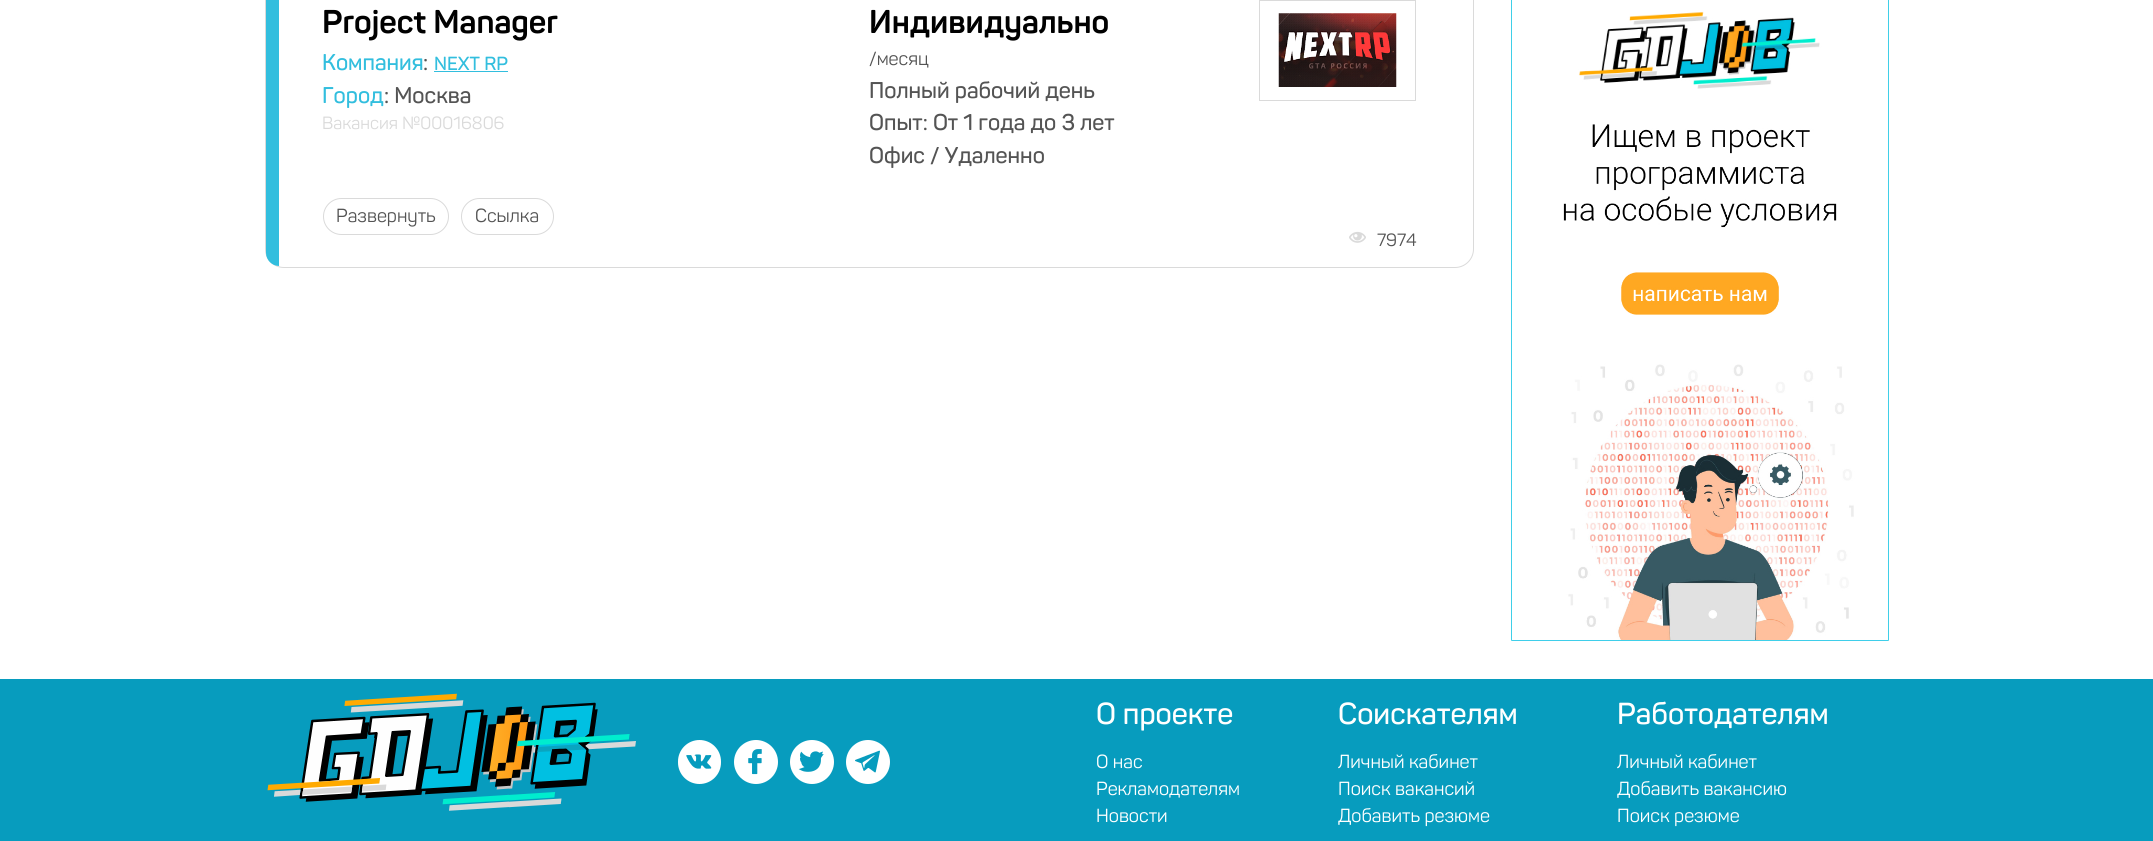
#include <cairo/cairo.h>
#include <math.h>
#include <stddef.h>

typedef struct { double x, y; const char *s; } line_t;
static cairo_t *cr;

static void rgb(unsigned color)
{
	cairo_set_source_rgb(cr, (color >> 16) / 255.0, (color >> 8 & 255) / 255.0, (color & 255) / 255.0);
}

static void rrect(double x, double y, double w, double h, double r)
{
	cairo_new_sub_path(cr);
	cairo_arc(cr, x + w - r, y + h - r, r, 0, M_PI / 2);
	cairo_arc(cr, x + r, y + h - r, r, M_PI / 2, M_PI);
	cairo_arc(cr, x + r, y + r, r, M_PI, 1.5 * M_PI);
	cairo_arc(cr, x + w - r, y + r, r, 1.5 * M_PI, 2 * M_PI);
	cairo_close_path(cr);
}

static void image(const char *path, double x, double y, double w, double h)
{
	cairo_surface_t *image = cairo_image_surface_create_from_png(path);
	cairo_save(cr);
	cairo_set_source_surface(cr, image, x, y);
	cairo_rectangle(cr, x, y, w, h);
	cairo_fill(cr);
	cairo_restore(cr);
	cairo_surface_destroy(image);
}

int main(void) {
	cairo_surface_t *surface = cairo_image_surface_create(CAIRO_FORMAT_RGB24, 2153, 841);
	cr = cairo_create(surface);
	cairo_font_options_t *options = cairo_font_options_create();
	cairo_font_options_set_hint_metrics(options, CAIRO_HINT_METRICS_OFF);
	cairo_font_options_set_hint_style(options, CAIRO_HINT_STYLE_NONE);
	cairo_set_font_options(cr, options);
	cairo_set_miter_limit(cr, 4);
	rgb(0xffffff);
	cairo_paint(cr);
	rrect(265.5, -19.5, 1208, 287, 18.5);
	rgb(0xdadada);
	cairo_set_line_width(cr, 1);
	cairo_stroke(cr);
	rgb(0x32bede);
	cairo_new_path(cr);
	cairo_move_to(cr, 279, -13);
	cairo_line_to(cr, 279, 266);
	cairo_curve_to(cr, 272, 266, 266, 260, 266, 253);
	cairo_line_to(cr, 266, 0);
	cairo_curve_to(cr, 266, -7, 272, -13, 279, -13);
	cairo_close_path(cr);
	cairo_fill(cr);
	cairo_rectangle(cr, 434, 71, 74, 1);
	cairo_fill(cr);
	cairo_rectangle(cr, 1259.5, 0.5, 156, 100);
	rgb(0xdadada);
	cairo_stroke(cr);
	image("img/1.png", 1278, 13, 119, 74);
	rrect(323.5, 198.5, 125, 36, 18);
	cairo_stroke(cr);
	rrect(461.5, 198.5, 92, 36, 18);
	cairo_stroke(cr);
	image("img/2.png", 1349, 231, 17, 12);
	image("img/3.png", 1511, 0, 378, 641);
	rgb(0x079cbe);
	cairo_rectangle(cr, 0, 679, 2153, 162);
	cairo_fill(cr);
	image("img/4.png", 267, 693, 369, 118);
	rgb(0xffffff);
	rrect(678, 740, 43, 44, 21.5);
	cairo_fill(cr);
	image("img/5.png", 686, 754, 26, 15);
	cairo_arc(cr, 756, 762, 22, 0, 2 * M_PI);
	cairo_fill(cr);
	image("img/6.png", 748, 749, 14, 26);
	cairo_arc(cr, 812, 762, 22, 0, 2 * M_PI);
	cairo_fill(cr);
	image("img/7.png", 798, 751, 26, 21);
	cairo_arc(cr, 868, 762, 22, 0, 2 * M_PI);
	cairo_fill(cr);
	image("img/8.png", 855, 750, 25, 23);
	cairo_select_font_face(cr, "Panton", CAIRO_FONT_SLANT_NORMAL, CAIRO_FONT_WEIGHT_BOLD);
	cairo_set_font_size(cr, 32.5);
	rgb(0x000000);
	cairo_move_to(cr, 322, 33);
	cairo_show_text(cr, "Project Manager");
	cairo_select_font_face(cr, "Panton SemiBold", CAIRO_FONT_SLANT_NORMAL, CAIRO_FONT_WEIGHT_NORMAL);
	cairo_set_font_size(cr, 22.5);
	rgb(0x32bede);
	cairo_move_to(cr, 322, 70);
	cairo_show_text(cr, "Компания");
	rgb(0x545454);
	cairo_move_to(cr, 423, 70);
	cairo_show_text(cr, ":");
	cairo_set_font_size(cr, 18.75);
	rgb(0x32bede);
	cairo_move_to(cr, 434, 70);
	cairo_show_text(cr, "NEXT RP");
	cairo_set_font_size(cr, 22.5);
	cairo_move_to(cr, 322, 103);
	cairo_show_text(cr, "Город");
	rgb(0x545454);
	cairo_move_to(cr, 384, 103);
	cairo_show_text(cr, ": Москва");
	cairo_select_font_face(cr, "Panton", CAIRO_FONT_SLANT_NORMAL, CAIRO_FONT_WEIGHT_NORMAL);
	cairo_set_font_size(cr, 17.5);
	rgb(0xdadada);
	cairo_move_to(cr, 322, 129);
	cairo_show_text(cr, "Вакансия №00016806");
	cairo_select_font_face(cr, "Panton", CAIRO_FONT_SLANT_NORMAL, CAIRO_FONT_WEIGHT_BOLD);
	cairo_set_font_size(cr, 32.5);
	rgb(0x000000);
	cairo_move_to(cr, 869, 33);
	cairo_show_text(cr, "Индивидуально");
	cairo_select_font_face(cr, "Panton", CAIRO_FONT_SLANT_NORMAL, CAIRO_FONT_WEIGHT_NORMAL);
	cairo_set_font_size(cr, 18.75);
	rgb(0x545454);
	cairo_move_to(cr, 869, 65);
	cairo_show_text(cr, "/месяц");
	cairo_select_font_face(cr, "Panton SemiBold", CAIRO_FONT_SLANT_NORMAL, CAIRO_FONT_WEIGHT_NORMAL);
	cairo_set_font_size(cr, 22.5);
	{
		static const line_t items[] = {
			{869, 98, "Полный рабочий день"},
			{869, 130, "Опыт: От 1 года до 3 лет"},
			{869, 163, "Офис / Удаленно"},
		};
		for (size_t i = 0; i < sizeof items / sizeof *items; i++) {
			cairo_move_to(cr, items[i].x, items[i].y);
			cairo_show_text(cr, items[i].s);
		}
	}
	cairo_select_font_face(cr, "Panton", CAIRO_FONT_SLANT_NORMAL, CAIRO_FONT_WEIGHT_NORMAL);
	cairo_set_font_size(cr, 18.75);
	cairo_move_to(cr, 336, 222);
	cairo_show_text(cr, "Развернуть");
	cairo_move_to(cr, 475, 222);
	cairo_show_text(cr, "Ссылка");
	cairo_set_font_size(cr, 17.5);
	cairo_move_to(cr, 1377, 246);
	cairo_show_text(cr, "7974");
	cairo_select_font_face(cr, "Panton SemiBold", CAIRO_FONT_SLANT_NORMAL, CAIRO_FONT_WEIGHT_NORMAL);
	cairo_set_font_size(cr, 30);
	rgb(0xffffff);
	cairo_move_to(cr, 1096, 724);
	cairo_show_text(cr, "О проекте");
	cairo_select_font_face(cr, "Panton", CAIRO_FONT_SLANT_NORMAL, CAIRO_FONT_WEIGHT_NORMAL);
	cairo_set_font_size(cr, 18.75);
	{
		static const line_t items[] = {
			{1096, 768, "О нас"},
			{1096, 795, "Рекламодателям"},
			{1096, 822, "Новости"},
		};
		for (size_t i = 0; i < sizeof items / sizeof *items; i++) {
			cairo_move_to(cr, items[i].x, items[i].y);
			cairo_show_text(cr, items[i].s);
		}
	}
	cairo_select_font_face(cr, "Panton SemiBold", CAIRO_FONT_SLANT_NORMAL, CAIRO_FONT_WEIGHT_NORMAL);
	cairo_set_font_size(cr, 30);
	cairo_move_to(cr, 1338, 724);
	cairo_show_text(cr, "Соискателям");
	cairo_select_font_face(cr, "Panton", CAIRO_FONT_SLANT_NORMAL, CAIRO_FONT_WEIGHT_NORMAL);
	cairo_set_font_size(cr, 18.75);
	{
		static const line_t items[] = {
			{1338, 768, "Личный кабинет"},
			{1338, 795, "Поиск вакансий"},
			{1338, 822, "Добавить резюме"},
		};
		for (size_t i = 0; i < sizeof items / sizeof *items; i++) {
			cairo_move_to(cr, items[i].x, items[i].y);
			cairo_show_text(cr, items[i].s);
		}
	}
	cairo_select_font_face(cr, "Panton SemiBold", CAIRO_FONT_SLANT_NORMAL, CAIRO_FONT_WEIGHT_NORMAL);
	cairo_set_font_size(cr, 30);
	cairo_move_to(cr, 1617, 724);
	cairo_show_text(cr, "Работодателям");
	cairo_select_font_face(cr, "Panton", CAIRO_FONT_SLANT_NORMAL, CAIRO_FONT_WEIGHT_NORMAL);
	cairo_set_font_size(cr, 18.75);
	{
		static const line_t items[] = {
			{1617, 768, "Личный кабинет"},
			{1617, 795, "Добавить вакансию"},
			{1617, 822, "Поиск резюме"},
		};
		for (size_t i = 0; i < sizeof items / sizeof *items; i++) {
			cairo_move_to(cr, items[i].x, items[i].y);
			cairo_show_text(cr, items[i].s);
		}
	}
	cairo_surface_write_to_png(surface, "page.png");
	cairo_font_options_destroy(options);
	cairo_destroy(cr);
	cairo_surface_destroy(surface);
	return 0;
}
